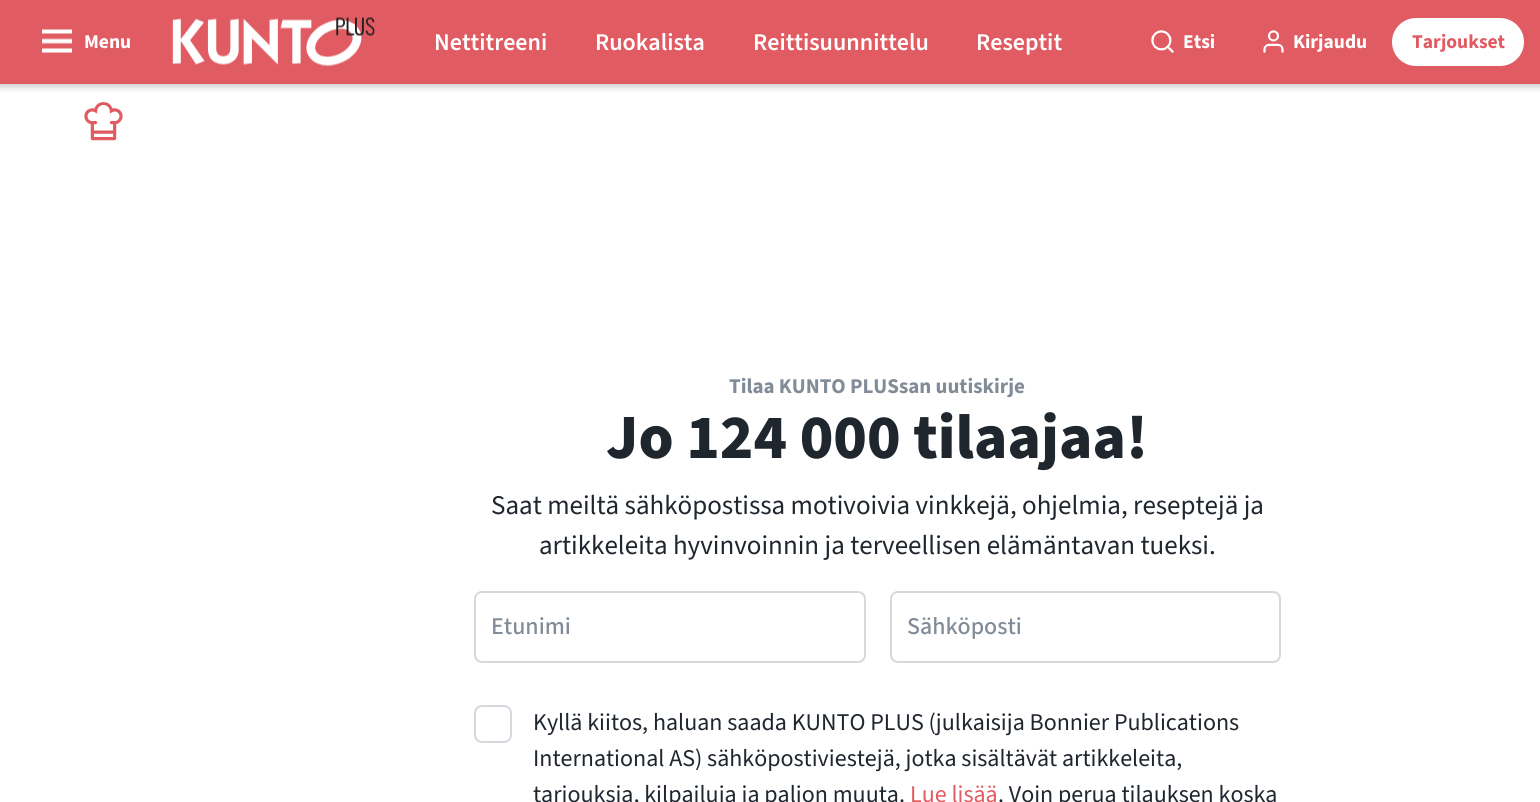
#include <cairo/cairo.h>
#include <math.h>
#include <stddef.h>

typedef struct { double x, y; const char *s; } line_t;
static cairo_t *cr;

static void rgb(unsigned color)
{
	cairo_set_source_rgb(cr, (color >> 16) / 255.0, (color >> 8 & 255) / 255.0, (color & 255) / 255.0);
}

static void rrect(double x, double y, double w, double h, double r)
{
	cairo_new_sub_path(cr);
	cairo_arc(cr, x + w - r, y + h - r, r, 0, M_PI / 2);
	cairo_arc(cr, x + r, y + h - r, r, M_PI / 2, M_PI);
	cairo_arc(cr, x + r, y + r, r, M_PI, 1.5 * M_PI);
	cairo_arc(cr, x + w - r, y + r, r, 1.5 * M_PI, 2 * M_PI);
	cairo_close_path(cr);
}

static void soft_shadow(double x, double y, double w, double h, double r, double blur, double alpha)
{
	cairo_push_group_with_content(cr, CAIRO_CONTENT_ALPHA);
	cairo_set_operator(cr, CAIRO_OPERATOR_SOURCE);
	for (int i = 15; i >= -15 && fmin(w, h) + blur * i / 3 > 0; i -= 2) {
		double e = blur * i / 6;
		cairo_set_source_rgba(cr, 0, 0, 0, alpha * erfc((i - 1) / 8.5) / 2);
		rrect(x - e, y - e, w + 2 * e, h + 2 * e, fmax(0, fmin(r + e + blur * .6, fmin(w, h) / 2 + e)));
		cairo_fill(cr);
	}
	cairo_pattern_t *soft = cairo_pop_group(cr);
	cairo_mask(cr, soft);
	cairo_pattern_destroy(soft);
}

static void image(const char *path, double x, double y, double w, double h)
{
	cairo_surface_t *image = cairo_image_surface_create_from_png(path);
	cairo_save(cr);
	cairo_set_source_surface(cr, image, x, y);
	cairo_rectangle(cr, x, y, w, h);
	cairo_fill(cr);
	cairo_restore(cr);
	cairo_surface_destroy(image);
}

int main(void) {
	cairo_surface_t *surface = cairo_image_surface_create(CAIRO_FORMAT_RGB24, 1540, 802);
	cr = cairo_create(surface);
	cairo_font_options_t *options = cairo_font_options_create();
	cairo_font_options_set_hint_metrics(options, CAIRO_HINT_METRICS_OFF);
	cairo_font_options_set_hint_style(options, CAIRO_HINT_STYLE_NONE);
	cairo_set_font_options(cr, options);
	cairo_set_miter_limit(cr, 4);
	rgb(0xffffff);
	cairo_paint(cr);
	rgb(0x000000);
	soft_shadow(0, 2, 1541, 84, 0, 4, 0.25);
	rgb(0xe15b62);
	cairo_rectangle(cr, 0, 0, 1540, 84);
	cairo_fill(cr);
	image("img/1.png", 42, 29, 30, 25);
	image("img/2.png", 172, 17, 203, 49);
	image("img/3.png", 1151, 30, 23, 23);
	image("img/4.png", 1263, 30, 21, 23);
	rgb(0xffffff);
	rrect(1392, 18, 132, 48, 24);
	cairo_fill(cr);
	image("img/5.png", 84, 102, 39, 39);
	rrect(475, 592, 390, 70, 7);
	rgb(0xd5d9dd);
	cairo_stroke(cr);
	rrect(891, 592, 389, 70, 7);
	cairo_stroke(cr);
	rrect(475, 706, 36, 36, 7);
	cairo_stroke(cr);
	cairo_select_font_face(cr, "Source Sans 3", CAIRO_FONT_SLANT_NORMAL, CAIRO_FONT_WEIGHT_BOLD);
	cairo_set_font_size(cr, 19.5);
	rgb(0xffffff);
	cairo_move_to(cr, 84, 48);
	cairo_show_text(cr, "Menu");
	cairo_select_font_face(cr, "Source Sans 3 SemiBold", CAIRO_FONT_SLANT_NORMAL, CAIRO_FONT_WEIGHT_NORMAL);
	cairo_set_font_size(cr, 24);
	{
		static const line_t items[] = {
			{434, 50, "Nettitreeni"},
			{595, 50, "Ruokalista"},
			{753, 50, "Reittisuunnittelu"},
			{976, 50, "Reseptit"},
		};
		for (size_t i = 0; i < sizeof items / sizeof *items; i++) {
			cairo_move_to(cr, items[i].x, items[i].y);
			cairo_show_text(cr, items[i].s);
		}
	}
	cairo_select_font_face(cr, "Source Sans 3", CAIRO_FONT_SLANT_NORMAL, CAIRO_FONT_WEIGHT_BOLD);
	cairo_set_font_size(cr, 19.5);
	cairo_move_to(cr, 1183, 48);
	cairo_show_text(cr, "Etsi");
	cairo_move_to(cr, 1293, 48);
	cairo_show_text(cr, "Kirjaudu");
	rgb(0xe15b62);
	cairo_move_to(cr, 1412, 48);
	cairo_show_text(cr, "Tarjoukset");
	cairo_set_font_size(cr, 21);
	rgb(0x818c98);
	cairo_move_to(cr, 729, 393);
	cairo_show_text(cr, "Tilaa KUNTO PLUSsan uutiskirje");
	cairo_select_font_face(cr, "Source Sans 3 ExtraBold", CAIRO_FONT_SLANT_NORMAL, CAIRO_FONT_WEIGHT_NORMAL);
	cairo_set_font_size(cr, 63);
	rgb(0x1f262e);
	cairo_move_to(cr, 606, 458);
	cairo_show_text(cr, "Jo 124 000 tilaajaa!");
	cairo_select_font_face(cr, "Source Sans 3", CAIRO_FONT_SLANT_NORMAL, CAIRO_FONT_WEIGHT_NORMAL);
	cairo_set_font_size(cr, 27);
	cairo_move_to(cr, 491, 514);
	cairo_show_text(cr, "Saat meiltä sähköpostissa motivoivia vinkkejä, ohjelmia, reseptejä ja");
	cairo_move_to(cr, 539, 554);
	cairo_show_text(cr, "artikkeleita hyvinvoinnin ja terveellisen elämäntavan tueksi.");
	cairo_select_font_face(cr, "Source Sans 3 Medium", CAIRO_FONT_SLANT_NORMAL, CAIRO_FONT_WEIGHT_NORMAL);
	cairo_set_font_size(cr, 24);
	rgb(0x818c98);
	cairo_move_to(cr, 491, 634);
	cairo_show_text(cr, "Etunimi");
	cairo_move_to(cr, 907, 634);
	cairo_show_text(cr, "Sähköposti");
	cairo_select_font_face(cr, "Source Sans 3", CAIRO_FONT_SLANT_NORMAL, CAIRO_FONT_WEIGHT_NORMAL);
	rgb(0x1f262e);
	{
		static const line_t items[] = {
			{533, 730, "Kyllä kiitos, haluan saada KUNTO PLUS (julkaisija Bonnier Publications"},
			{533, 766, "International AS) sähköpostiviestejä, jotka sisältävät artikkeleita,"},
			{533, 802, "tarjouksia, kilpailuja ja paljon muuta."},
		};
		for (size_t i = 0; i < sizeof items / sizeof *items; i++) {
			cairo_move_to(cr, items[i].x, items[i].y);
			cairo_show_text(cr, items[i].s);
		}
	}
	rgb(0xe15b62);
	cairo_move_to(cr, 910, 802);
	cairo_show_text(cr, "Lue lisää");
	rgb(0x1f262e);
	cairo_move_to(cr, 998, 802);
	cairo_show_text(cr, ". Voin perua tilauksen koska");
	cairo_surface_write_to_png(surface, "page.png");
	cairo_font_options_destroy(options);
	cairo_destroy(cr);
	cairo_surface_destroy(surface);
	return 0;
}
